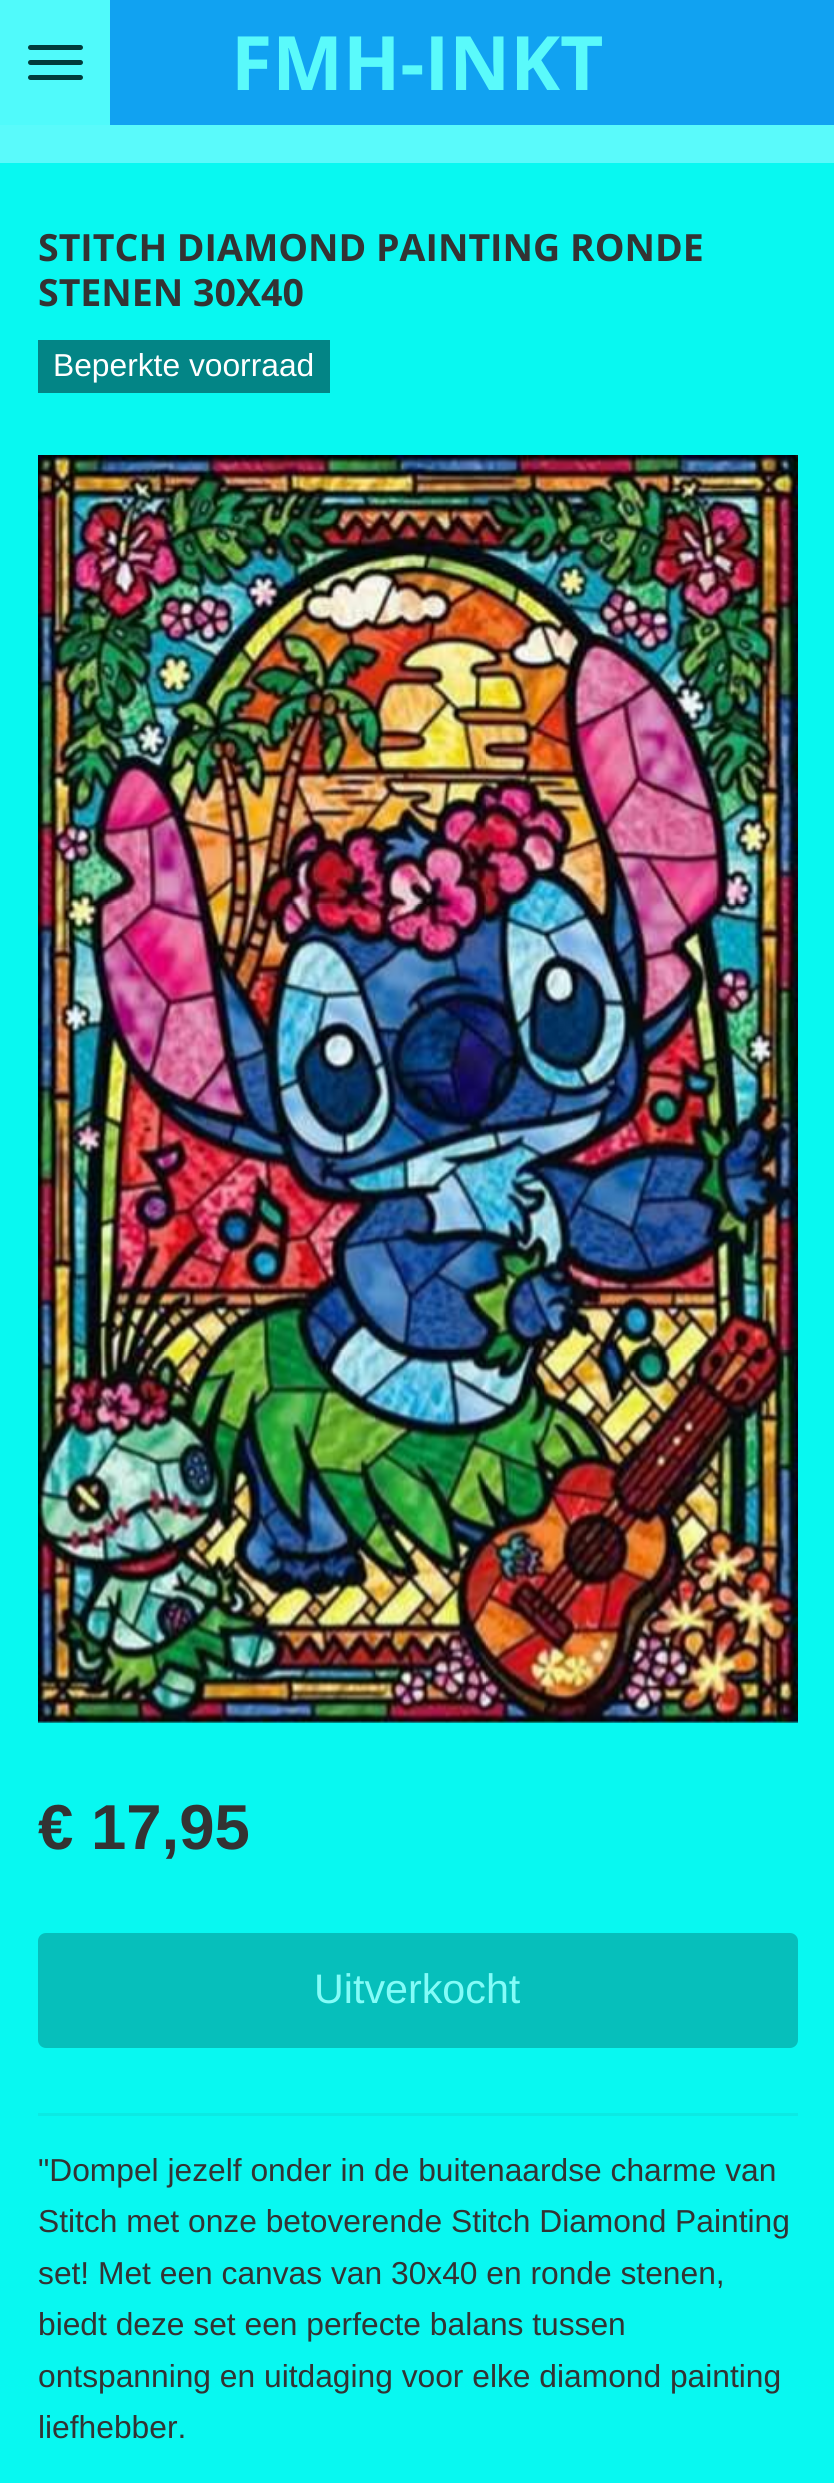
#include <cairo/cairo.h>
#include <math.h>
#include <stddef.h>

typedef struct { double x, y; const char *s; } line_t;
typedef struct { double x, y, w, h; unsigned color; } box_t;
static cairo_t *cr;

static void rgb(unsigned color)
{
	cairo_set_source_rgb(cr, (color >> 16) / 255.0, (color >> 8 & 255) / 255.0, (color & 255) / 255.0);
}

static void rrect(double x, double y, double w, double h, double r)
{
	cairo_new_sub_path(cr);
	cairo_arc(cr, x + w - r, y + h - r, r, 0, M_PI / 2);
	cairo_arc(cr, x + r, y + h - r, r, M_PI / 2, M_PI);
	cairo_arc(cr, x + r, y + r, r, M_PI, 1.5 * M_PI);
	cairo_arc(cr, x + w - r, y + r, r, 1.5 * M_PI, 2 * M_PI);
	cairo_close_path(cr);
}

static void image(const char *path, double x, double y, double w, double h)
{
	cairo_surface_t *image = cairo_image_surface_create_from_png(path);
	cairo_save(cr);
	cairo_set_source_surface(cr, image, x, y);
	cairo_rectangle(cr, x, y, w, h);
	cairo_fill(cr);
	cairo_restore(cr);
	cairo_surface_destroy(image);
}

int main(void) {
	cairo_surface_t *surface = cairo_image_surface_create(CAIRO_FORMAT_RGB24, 834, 2483);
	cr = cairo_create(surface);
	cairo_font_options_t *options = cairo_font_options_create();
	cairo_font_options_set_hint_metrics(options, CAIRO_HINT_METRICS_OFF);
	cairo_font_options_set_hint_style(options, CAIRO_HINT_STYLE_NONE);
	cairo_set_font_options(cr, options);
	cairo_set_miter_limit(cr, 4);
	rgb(0x08f8f1);
	cairo_paint(cr);
	rgb(0x50fafb);
	cairo_rectangle(cr, 0, 0, 110, 125);
	cairo_fill(cr);
	rgb(0x013b3b);
	rrect(28, 60, 55, 5, 2.5);
	cairo_fill(cr);
	rrect(28, 45, 55, 5, 2.5);
	cairo_fill(cr);
	rrect(28, 75, 55, 5, 2.5);
	cairo_fill(cr);
	{
		static const box_t items[] = {
			{110, 0, 724, 125, 0x11a2f1},
			{0, 125, 834, 38, 0x5afafb},
			{38, 340, 292, 53, 0x038586},
		};
		for (size_t i = 0; i < sizeof items / sizeof *items; i++) {
			rgb(items[i].color);
			cairo_rectangle(cr, items[i].x, items[i].y, items[i].w, items[i].h);
			cairo_fill(cr);
		}
	}
	image("img/1.png", 38, 455, 760, 1268);
	rgb(0x06bfbb);
	rrect(38, 1933, 760, 115, 8);
	cairo_fill(cr);
	rgb(0x0beae4);
	cairo_rectangle(cr, 38, 2113, 760, 3);
	cairo_fill(cr);
	cairo_select_font_face(cr, "Open Sans", CAIRO_FONT_SLANT_NORMAL, CAIRO_FONT_WEIGHT_BOLD);
	cairo_set_font_size(cr, 75);
	rgb(0x5afafb);
	cairo_move_to(cr, 231, 90);
	cairo_show_text(cr, "FMH-INKT");
	cairo_set_font_size(cr, 37.5);
	rgb(0x333333);
	cairo_move_to(cr, 38, 261);
	cairo_show_text(cr, "STITCH DIAMOND PAINTING RONDE");
	cairo_move_to(cr, 38, 306);
	cairo_show_text(cr, "STENEN 30X40");
	cairo_select_font_face(cr, "Liberation Sans", CAIRO_FONT_SLANT_NORMAL, CAIRO_FONT_WEIGHT_NORMAL);
	cairo_set_font_size(cr, 31.75);
	rgb(0xffffff);
	cairo_move_to(cr, 53, 376);
	cairo_show_text(cr, "Beperkte voorraad");
	cairo_select_font_face(cr, "Liberation Sans", CAIRO_FONT_SLANT_NORMAL, CAIRO_FONT_WEIGHT_BOLD);
	cairo_set_font_size(cr, 63.5);
	rgb(0x333333);
	cairo_move_to(cr, 38, 1849);
	cairo_show_text(cr, "€ 17,95");
	cairo_select_font_face(cr, "Liberation Sans", CAIRO_FONT_SLANT_NORMAL, CAIRO_FONT_WEIGHT_NORMAL);
	cairo_set_font_size(cr, 41.25);
	rgb(0x84fcf8);
	cairo_move_to(cr, 314, 2003);
	cairo_show_text(cr, "Uitverkocht");
	cairo_set_font_size(cr, 31.75);
	rgb(0x333333);
	{
		static const line_t items[] = {
			{38, 2181, "\"Dompel jezelf onder in de buitenaardse charme van"},
			{38, 2232, "Stitch met onze betoverende Stitch Diamond Painting"},
			{38, 2284, "set! Met een canvas van 30x40 en ronde stenen,"},
			{38, 2335, "biedt deze set een perfecte balans tussen"},
			{38, 2387, "ontspanning en uitdaging voor elke diamond painting"},
			{38, 2438, "liefhebber."},
		};
		for (size_t i = 0; i < sizeof items / sizeof *items; i++) {
			cairo_move_to(cr, items[i].x, items[i].y);
			cairo_show_text(cr, items[i].s);
		}
	}
	cairo_surface_write_to_png(surface, "page.png");
	cairo_font_options_destroy(options);
	cairo_destroy(cr);
	cairo_surface_destroy(surface);
	return 0;
}
